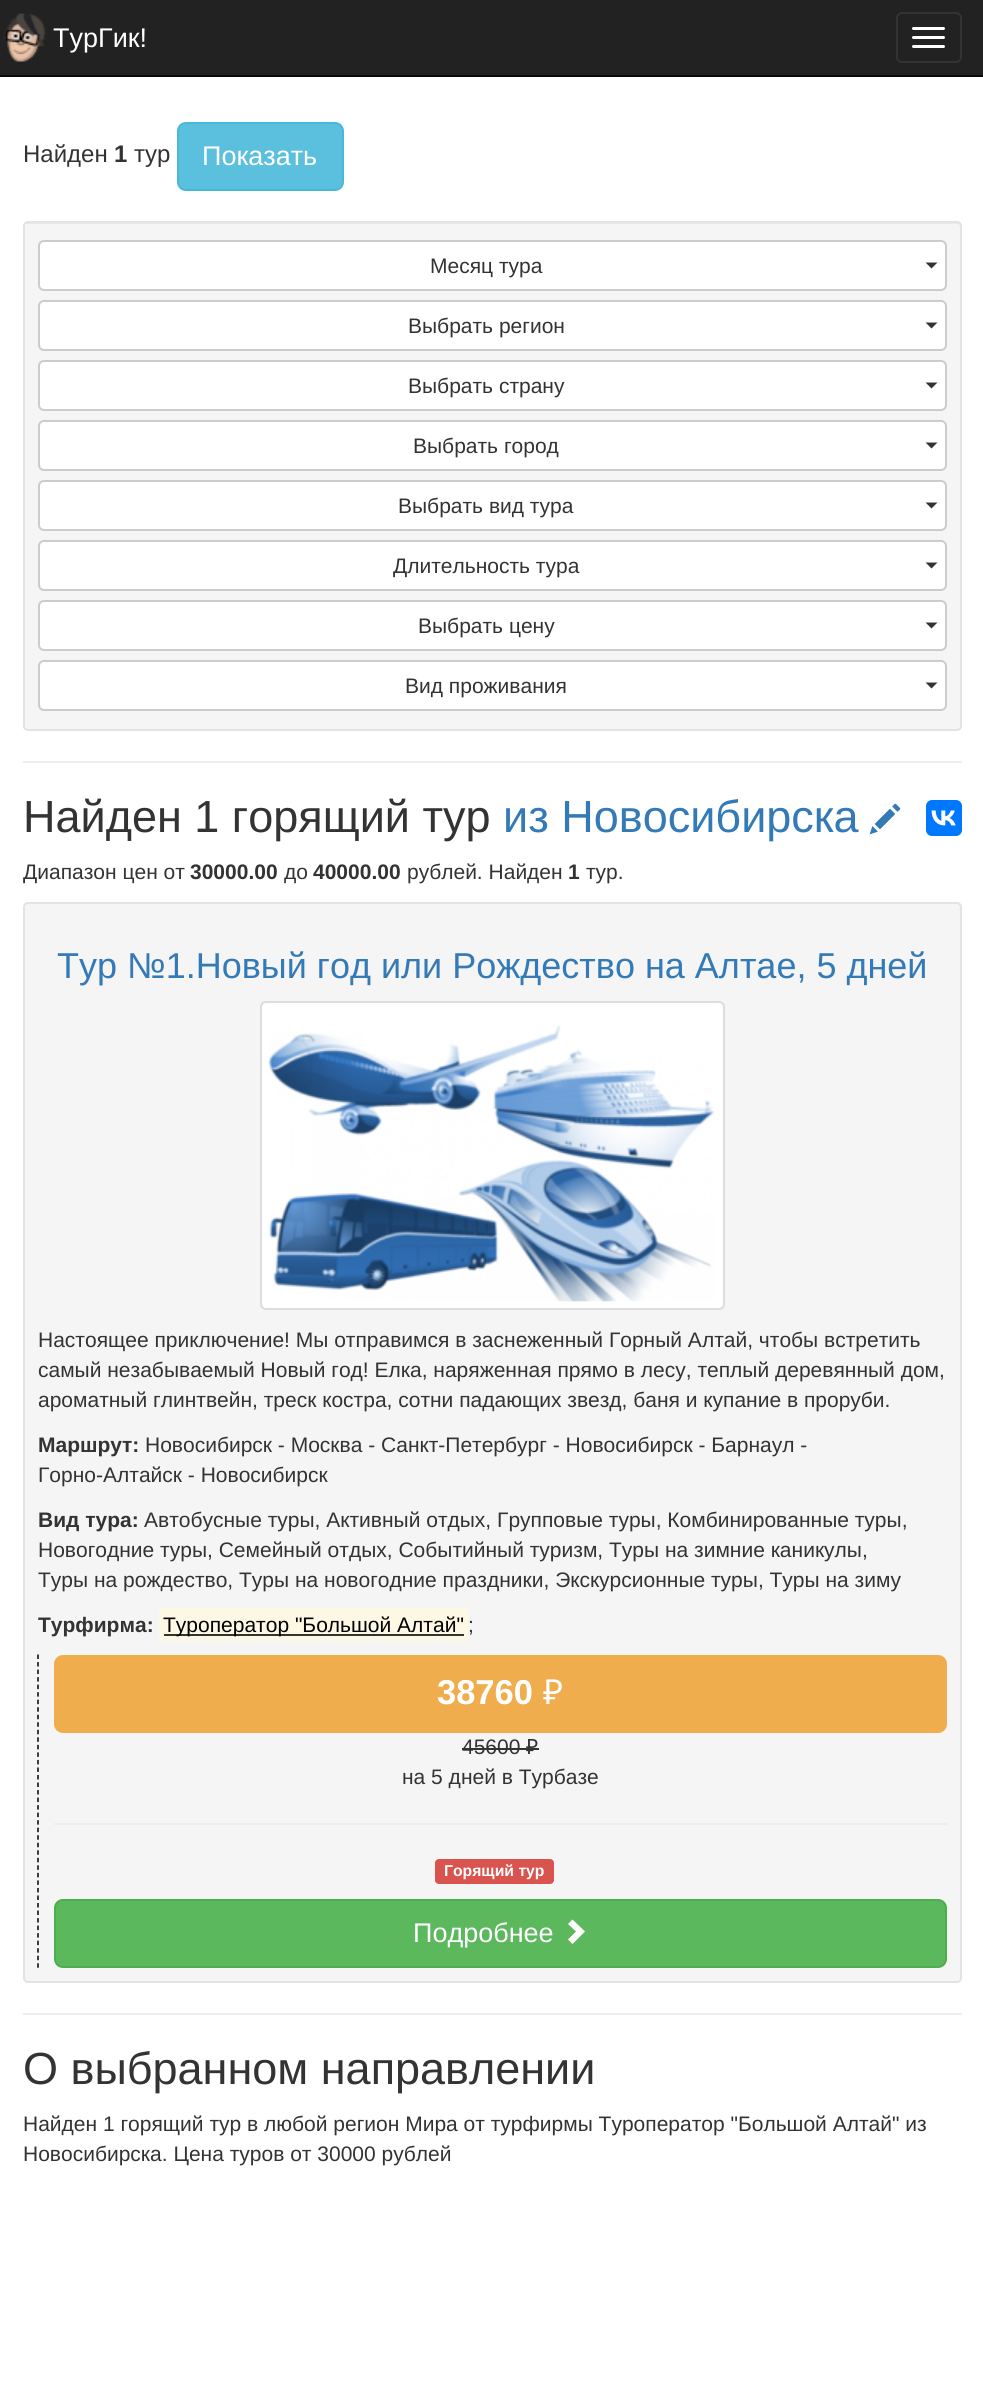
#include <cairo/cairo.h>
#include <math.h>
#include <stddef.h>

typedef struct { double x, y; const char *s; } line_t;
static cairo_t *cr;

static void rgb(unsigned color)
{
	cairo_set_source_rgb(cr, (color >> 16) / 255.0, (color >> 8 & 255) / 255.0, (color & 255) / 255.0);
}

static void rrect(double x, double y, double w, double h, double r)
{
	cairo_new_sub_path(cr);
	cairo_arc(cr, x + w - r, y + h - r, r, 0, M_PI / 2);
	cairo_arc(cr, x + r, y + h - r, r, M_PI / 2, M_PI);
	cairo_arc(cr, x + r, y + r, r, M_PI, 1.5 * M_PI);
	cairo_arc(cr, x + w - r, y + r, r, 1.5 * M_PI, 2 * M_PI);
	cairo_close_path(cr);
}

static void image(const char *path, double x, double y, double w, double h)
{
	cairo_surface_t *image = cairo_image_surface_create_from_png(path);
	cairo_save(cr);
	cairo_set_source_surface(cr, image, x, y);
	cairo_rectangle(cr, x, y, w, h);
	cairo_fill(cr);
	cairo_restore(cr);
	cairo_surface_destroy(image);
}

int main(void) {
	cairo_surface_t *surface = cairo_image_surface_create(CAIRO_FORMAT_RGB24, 983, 2399);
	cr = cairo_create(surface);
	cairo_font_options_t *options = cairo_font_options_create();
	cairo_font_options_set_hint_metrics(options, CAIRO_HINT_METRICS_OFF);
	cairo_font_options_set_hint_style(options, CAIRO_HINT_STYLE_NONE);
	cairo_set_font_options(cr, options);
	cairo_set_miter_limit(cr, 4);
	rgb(0xffffff);
	cairo_paint(cr);
	rgb(0x222222);
	cairo_rectangle(cr, 0, 0, 983, 75);
	cairo_fill(cr);
	rgb(0x080808);
	cairo_rectangle(cr, 0, 75, 983, 2);
	cairo_fill(cr);
	image("img/1.png", 3, 13, 43, 49);
	rrect(897, 13, 64, 49, 5);
	rgb(0x333333);
	cairo_stroke(cr);
	rgb(0xffffff);
	rrect(912, 27, 33, 3, 1.5);
	cairo_fill(cr);
	rrect(912, 36, 33, 3, 1.5);
	cairo_fill(cr);
	rrect(912, 45, 33, 3, 1.5);
	cairo_fill(cr);
	rgb(0x5bc0de);
	rrect(178, 123, 165, 67, 8);
	cairo_fill_preserve(cr);
	rgb(0x46b8da);
	cairo_stroke(cr);
	rgb(0xf5f5f5);
	rrect(23, 221, 939, 510, 5);
	cairo_fill(cr);
	rgb(0xe9e9e9);
	cairo_new_path(cr);
	cairo_move_to(cr, 27, 224);
	cairo_line_to(cr, 957, 224);
	cairo_curve_to(cr, 959, 224, 960, 225, 960, 226);
	cairo_curve_to(cr, 960, 224, 959, 222, 957, 222);
	cairo_line_to(cr, 27, 222);
	cairo_curve_to(cr, 25, 222, 24, 224, 24, 226);
	cairo_curve_to(cr, 24, 225, 25, 224, 27, 224);
	cairo_close_path(cr);
	cairo_fill(cr);
	rrect(24, 222, 937, 508, 4);
	rgb(0xe3e3e3);
	cairo_stroke(cr);
	rgb(0xffffff);
	rrect(39, 241, 907, 49, 5);
	cairo_fill_preserve(cr);
	rgb(0xcccccc);
	cairo_stroke(cr);
	rgb(0x333333);
	cairo_new_path(cr);
	cairo_move_to(cr, 925.5, 262.5);
	cairo_line_to(cr, 937.5, 262.5);
	cairo_line_to(cr, 931.5, 268.5);
	cairo_close_path(cr);
	cairo_fill(cr);
	rgb(0xffffff);
	rrect(39, 301, 907, 49, 5);
	cairo_fill_preserve(cr);
	rgb(0xcccccc);
	cairo_stroke(cr);
	rgb(0x333333);
	cairo_new_path(cr);
	cairo_move_to(cr, 925.5, 322.5);
	cairo_line_to(cr, 937.5, 322.5);
	cairo_line_to(cr, 931.5, 328.5);
	cairo_close_path(cr);
	cairo_fill(cr);
	rgb(0xffffff);
	rrect(39, 361, 907, 49, 5);
	cairo_fill_preserve(cr);
	rgb(0xcccccc);
	cairo_stroke(cr);
	rgb(0x333333);
	cairo_new_path(cr);
	cairo_move_to(cr, 925.5, 382.5);
	cairo_line_to(cr, 937.5, 382.5);
	cairo_line_to(cr, 931.5, 388.5);
	cairo_close_path(cr);
	cairo_fill(cr);
	rgb(0xffffff);
	rrect(39, 421, 907, 49, 5);
	cairo_fill_preserve(cr);
	rgb(0xcccccc);
	cairo_stroke(cr);
	rgb(0x333333);
	cairo_new_path(cr);
	cairo_move_to(cr, 925.5, 442.5);
	cairo_line_to(cr, 937.5, 442.5);
	cairo_line_to(cr, 931.5, 448.5);
	cairo_close_path(cr);
	cairo_fill(cr);
	rgb(0xffffff);
	rrect(39, 481, 907, 49, 5);
	cairo_fill_preserve(cr);
	rgb(0xcccccc);
	cairo_stroke(cr);
	rgb(0x333333);
	cairo_new_path(cr);
	cairo_move_to(cr, 925.5, 502.5);
	cairo_line_to(cr, 937.5, 502.5);
	cairo_line_to(cr, 931.5, 508.5);
	cairo_close_path(cr);
	cairo_fill(cr);
	rgb(0xffffff);
	rrect(39, 541, 907, 49, 5);
	cairo_fill_preserve(cr);
	rgb(0xcccccc);
	cairo_stroke(cr);
	rgb(0x333333);
	cairo_new_path(cr);
	cairo_move_to(cr, 925.5, 562.5);
	cairo_line_to(cr, 937.5, 562.5);
	cairo_line_to(cr, 931.5, 568.5);
	cairo_close_path(cr);
	cairo_fill(cr);
	rgb(0xffffff);
	rrect(39, 601, 907, 49, 5);
	cairo_fill_preserve(cr);
	rgb(0xcccccc);
	cairo_stroke(cr);
	rgb(0x333333);
	cairo_new_path(cr);
	cairo_move_to(cr, 925.5, 622.5);
	cairo_line_to(cr, 937.5, 622.5);
	cairo_line_to(cr, 931.5, 628.5);
	cairo_close_path(cr);
	cairo_fill(cr);
	rgb(0xffffff);
	rrect(39, 661, 907, 49, 5);
	cairo_fill_preserve(cr);
	rgb(0xcccccc);
	cairo_stroke(cr);
	rgb(0x333333);
	cairo_new_path(cr);
	cairo_move_to(cr, 925.5, 682.5);
	cairo_line_to(cr, 937.5, 682.5);
	cairo_line_to(cr, 931.5, 688.5);
	cairo_close_path(cr);
	cairo_fill(cr);
	rgb(0xeeeeee);
	cairo_rectangle(cr, 23, 761, 939, 2);
	cairo_fill(cr);
	image("img/2.png", 869, 803, 32, 32);
	rgb(0x0077ff);
	rrect(926, 800, 36, 36, 6);
	cairo_fill(cr);
	image("img/3.png", 931, 810, 25, 16);
	rgb(0xf5f5f5);
	rrect(23, 902, 939, 1081, 5);
	cairo_fill(cr);
	rgb(0xe9e9e9);
	cairo_new_path(cr);
	cairo_move_to(cr, 27, 904);
	cairo_line_to(cr, 957, 904);
	cairo_curve_to(cr, 959, 904, 960, 906, 960, 908);
	cairo_line_to(cr, 960, 906);
	cairo_curve_to(cr, 960, 904, 959, 903, 957, 903);
	cairo_line_to(cr, 27, 903);
	cairo_curve_to(cr, 25, 903, 24, 904, 24, 906);
	cairo_line_to(cr, 24, 908);
	cairo_curve_to(cr, 24, 906, 25, 904, 27, 904);
	cairo_close_path(cr);
	cairo_fill(cr);
	rrect(24, 903, 937, 1079, 4);
	rgb(0xe3e3e3);
	cairo_stroke(cr);
	rgb(0xffffff);
	rrect(261, 1002, 463, 307, 5);
	cairo_fill_preserve(cr);
	rgb(0xdddddd);
	cairo_stroke(cr);
	image("img/4.png", 268, 1025, 447, 277);
	rgb(0xfcf8e3);
	cairo_rectangle(cr, 159, 1608, 309, 33);
	cairo_fill(cr);
	rgb(0x333333);
	cairo_rectangle(cr, 164, 1634, 300, 2);
	cairo_fill(cr);
	cairo_new_path(cr);
	cairo_move_to(cr, 38, 1654.5);
	cairo_line_to(cr, 38, 1968);
	rgb(0x000000);
	cairo_set_line_width(cr, 1.5);
	cairo_set_dash(cr, (double[]){4.5, 3.03}, 2, 0);
	cairo_stroke(cr);
	rgb(0xf0ad4e);
	rrect(54, 1655, 893, 78, 9);
	cairo_fill(cr);
	rgb(0x333333);
	cairo_rectangle(cr, 462, 1748, 77, 2);
	cairo_fill(cr);
	rgb(0xeeeeee);
	cairo_rectangle(cr, 54, 1823, 893, 2);
	cairo_fill(cr);
	rgb(0xd9534f);
	rrect(435, 1859, 119, 25, 4);
	cairo_fill(cr);
	rgb(0x5cb85c);
	rrect(55, 1900, 891, 67, 8);
	cairo_fill_preserve(cr);
	rgb(0x4cae4c);
	cairo_set_line_width(cr, 2);
	cairo_set_dash(cr, NULL, 0, 0);
	cairo_stroke(cr);
	rgb(0xffffff);
	cairo_new_path(cr);
	cairo_move_to(cr, 585, 1931.5);
	cairo_line_to(cr, 572.5, 1944);
	cairo_line_to(cr, 568, 1939.5);
	cairo_line_to(cr, 576, 1931.5);
	cairo_line_to(cr, 568, 1924);
	cairo_line_to(cr, 572.5, 1919.5);
	cairo_close_path(cr);
	cairo_fill(cr);
	rgb(0xeeeeee);
	cairo_rectangle(cr, 23, 2013, 939, 2);
	cairo_fill(cr);
	cairo_select_font_face(cr, "Liberation Sans", CAIRO_FONT_SLANT_NORMAL, CAIRO_FONT_WEIGHT_NORMAL);
	cairo_set_font_size(cr, 27);
	rgb(0xffffff);
	cairo_move_to(cr, 53, 47);
	cairo_show_text(cr, "ТурГик!");
	cairo_set_font_size(cr, 24);
	rgb(0x333333);
	cairo_move_to(cr, 23, 162);
	cairo_show_text(cr, "Найден");
	cairo_select_font_face(cr, "Liberation Sans", CAIRO_FONT_SLANT_NORMAL, CAIRO_FONT_WEIGHT_BOLD);
	cairo_move_to(cr, 114, 162);
	cairo_show_text(cr, "1");
	cairo_select_font_face(cr, "Liberation Sans", CAIRO_FONT_SLANT_NORMAL, CAIRO_FONT_WEIGHT_NORMAL);
	cairo_move_to(cr, 134, 162);
	cairo_show_text(cr, "тур");
	cairo_set_font_size(cr, 27);
	rgb(0xffffff);
	cairo_move_to(cr, 202, 165);
	cairo_show_text(cr, "Показать");
	cairo_set_font_size(cr, 21);
	rgb(0x333333);
	{
		static const line_t items[] = {
			{430, 273, "Месяц тура"},
			{408, 333, "Выбрать регион"},
			{408, 393, "Выбрать страну"},
			{413, 453, "Выбрать город"},
			{398, 513, "Выбрать вид тура"},
			{393, 573, "Длительность тура"},
			{418, 633, "Выбрать цену"},
			{405, 693, "Вид проживания"},
		};
		for (size_t i = 0; i < sizeof items / sizeof *items; i++) {
			cairo_move_to(cr, items[i].x, items[i].y);
			cairo_show_text(cr, items[i].s);
		}
	}
	cairo_set_font_size(cr, 45);
	cairo_move_to(cr, 23, 832);
	cairo_show_text(cr, "Найден 1 горящий тур");
	rgb(0x337ab7);
	cairo_move_to(cr, 503, 832);
	cairo_show_text(cr, "из Новосибирска");
	cairo_set_font_size(cr, 21);
	rgb(0x333333);
	cairo_move_to(cr, 23, 879);
	cairo_show_text(cr, "Диапазон цен от");
	cairo_select_font_face(cr, "Liberation Sans", CAIRO_FONT_SLANT_NORMAL, CAIRO_FONT_WEIGHT_BOLD);
	cairo_move_to(cr, 190, 879);
	cairo_show_text(cr, "30000.00");
	cairo_select_font_face(cr, "Liberation Sans", CAIRO_FONT_SLANT_NORMAL, CAIRO_FONT_WEIGHT_NORMAL);
	cairo_move_to(cr, 284, 879);
	cairo_show_text(cr, "до");
	cairo_select_font_face(cr, "Liberation Sans", CAIRO_FONT_SLANT_NORMAL, CAIRO_FONT_WEIGHT_BOLD);
	cairo_move_to(cr, 313, 879);
	cairo_show_text(cr, "40000.00");
	cairo_select_font_face(cr, "Liberation Sans", CAIRO_FONT_SLANT_NORMAL, CAIRO_FONT_WEIGHT_NORMAL);
	cairo_move_to(cr, 407, 879);
	cairo_show_text(cr, "рублей. Найден");
	cairo_select_font_face(cr, "Liberation Sans", CAIRO_FONT_SLANT_NORMAL, CAIRO_FONT_WEIGHT_BOLD);
	cairo_move_to(cr, 568, 879);
	cairo_show_text(cr, "1");
	cairo_select_font_face(cr, "Liberation Sans", CAIRO_FONT_SLANT_NORMAL, CAIRO_FONT_WEIGHT_NORMAL);
	cairo_move_to(cr, 586, 879);
	cairo_show_text(cr, "тур.");
	cairo_set_font_size(cr, 36);
	rgb(0x337ab7);
	cairo_move_to(cr, 57, 978);
	cairo_show_text(cr, "Тур №1.Новый год или Рождество на Алтае, 5 дней");
	cairo_set_font_size(cr, 21);
	rgb(0x333333);
	{
		static const line_t items[] = {
			{38, 1347, "Настоящее приключение! Мы отправимся в заснеженный Горный Алтай, чтобы встретить"},
			{38, 1377, "самый незабываемый Новый год! Елка, наряженная прямо в лесу, теплый деревянный дом,"},
			{38, 1407, "ароматный глинтвейн, треск костра, сотни падающих звезд, баня и купание в проруби."},
		};
		for (size_t i = 0; i < sizeof items / sizeof *items; i++) {
			cairo_move_to(cr, items[i].x, items[i].y);
			cairo_show_text(cr, items[i].s);
		}
	}
	cairo_select_font_face(cr, "Liberation Sans", CAIRO_FONT_SLANT_NORMAL, CAIRO_FONT_WEIGHT_BOLD);
	cairo_move_to(cr, 38, 1452);
	cairo_show_text(cr, "Маршрут:");
	cairo_select_font_face(cr, "Liberation Sans", CAIRO_FONT_SLANT_NORMAL, CAIRO_FONT_WEIGHT_NORMAL);
	cairo_move_to(cr, 145, 1452);
	cairo_show_text(cr, "Новосибирск - Москва - Санкт-Петербург - Новосибирск - Барнаул -");
	cairo_move_to(cr, 38, 1482);
	cairo_show_text(cr, "Горно-Алтайск - Новосибирск");
	cairo_select_font_face(cr, "Liberation Sans", CAIRO_FONT_SLANT_NORMAL, CAIRO_FONT_WEIGHT_BOLD);
	cairo_move_to(cr, 38, 1527);
	cairo_show_text(cr, "Вид тура:");
	cairo_select_font_face(cr, "Liberation Sans", CAIRO_FONT_SLANT_NORMAL, CAIRO_FONT_WEIGHT_NORMAL);
	{
		static const line_t items[] = {
			{144, 1527, "Автобусные туры, Активный отдых, Групповые туры, Комбинированные туры,"},
			{38, 1557, "Новогодние туры, Семейный отдых, Событийный туризм, Туры на зимние каникулы,"},
			{38, 1587, "Туры на рождество, Туры на новогодние праздники, Экскурсионные туры, Туры на зиму"},
		};
		for (size_t i = 0; i < sizeof items / sizeof *items; i++) {
			cairo_move_to(cr, items[i].x, items[i].y);
			cairo_show_text(cr, items[i].s);
		}
	}
	cairo_select_font_face(cr, "Liberation Sans", CAIRO_FONT_SLANT_NORMAL, CAIRO_FONT_WEIGHT_BOLD);
	cairo_move_to(cr, 38, 1632);
	cairo_show_text(cr, "Турфирма:");
	cairo_select_font_face(cr, "Liberation Sans", CAIRO_FONT_SLANT_NORMAL, CAIRO_FONT_WEIGHT_NORMAL);
	rgb(0x000000);
	cairo_move_to(cr, 163, 1632);
	cairo_show_text(cr, "Туроператор \"Большой Алтай\"");
	rgb(0x333333);
	cairo_move_to(cr, 468, 1632);
	cairo_show_text(cr, ";");
	cairo_select_font_face(cr, "Liberation Sans", CAIRO_FONT_SLANT_NORMAL, CAIRO_FONT_WEIGHT_BOLD);
	cairo_set_font_size(cr, 34.5);
	rgb(0xffffff);
	cairo_move_to(cr, 437, 1704);
	cairo_show_text(cr, "38760");
	cairo_select_font_face(cr, "Noto Sans", CAIRO_FONT_SLANT_NORMAL, CAIRO_FONT_WEIGHT_NORMAL);
	cairo_move_to(cr, 543, 1704);
	cairo_show_text(cr, "₽");
	cairo_select_font_face(cr, "Liberation Sans", CAIRO_FONT_SLANT_NORMAL, CAIRO_FONT_WEIGHT_NORMAL);
	cairo_set_font_size(cr, 21);
	rgb(0x333333);
	cairo_move_to(cr, 462, 1754);
	cairo_show_text(cr, "45600");
	cairo_select_font_face(cr, "Noto Sans", CAIRO_FONT_SLANT_NORMAL, CAIRO_FONT_WEIGHT_NORMAL);
	cairo_move_to(cr, 526, 1754);
	cairo_show_text(cr, "₽");
	cairo_select_font_face(cr, "Liberation Sans", CAIRO_FONT_SLANT_NORMAL, CAIRO_FONT_WEIGHT_NORMAL);
	cairo_move_to(cr, 402, 1784);
	cairo_show_text(cr, "на 5 дней в Турбазе");
	cairo_select_font_face(cr, "Liberation Sans", CAIRO_FONT_SLANT_NORMAL, CAIRO_FONT_WEIGHT_BOLD);
	cairo_set_font_size(cr, 15.75);
	rgb(0xffffff);
	cairo_move_to(cr, 444, 1876);
	cairo_show_text(cr, "Горящий тур");
	cairo_select_font_face(cr, "Liberation Sans", CAIRO_FONT_SLANT_NORMAL, CAIRO_FONT_WEIGHT_NORMAL);
	cairo_set_font_size(cr, 27);
	cairo_move_to(cr, 413, 1942);
	cairo_show_text(cr, "Подробнее");
	cairo_set_font_size(cr, 45);
	rgb(0x333333);
	cairo_move_to(cr, 23, 2084);
	cairo_show_text(cr, "О выбранном направлении");
	cairo_set_font_size(cr, 21);
	cairo_move_to(cr, 23, 2131);
	cairo_show_text(cr, "Найден 1 горящий тур в любой регион Мира от турфирмы Туроператор \"Большой Алтай\" из");
	cairo_move_to(cr, 23, 2161);
	cairo_show_text(cr, "Новосибирска. Цена туров от 30000 рублей");
	cairo_surface_write_to_png(surface, "page.png");
	cairo_font_options_destroy(options);
	cairo_destroy(cr);
	cairo_surface_destroy(surface);
	return 0;
}
